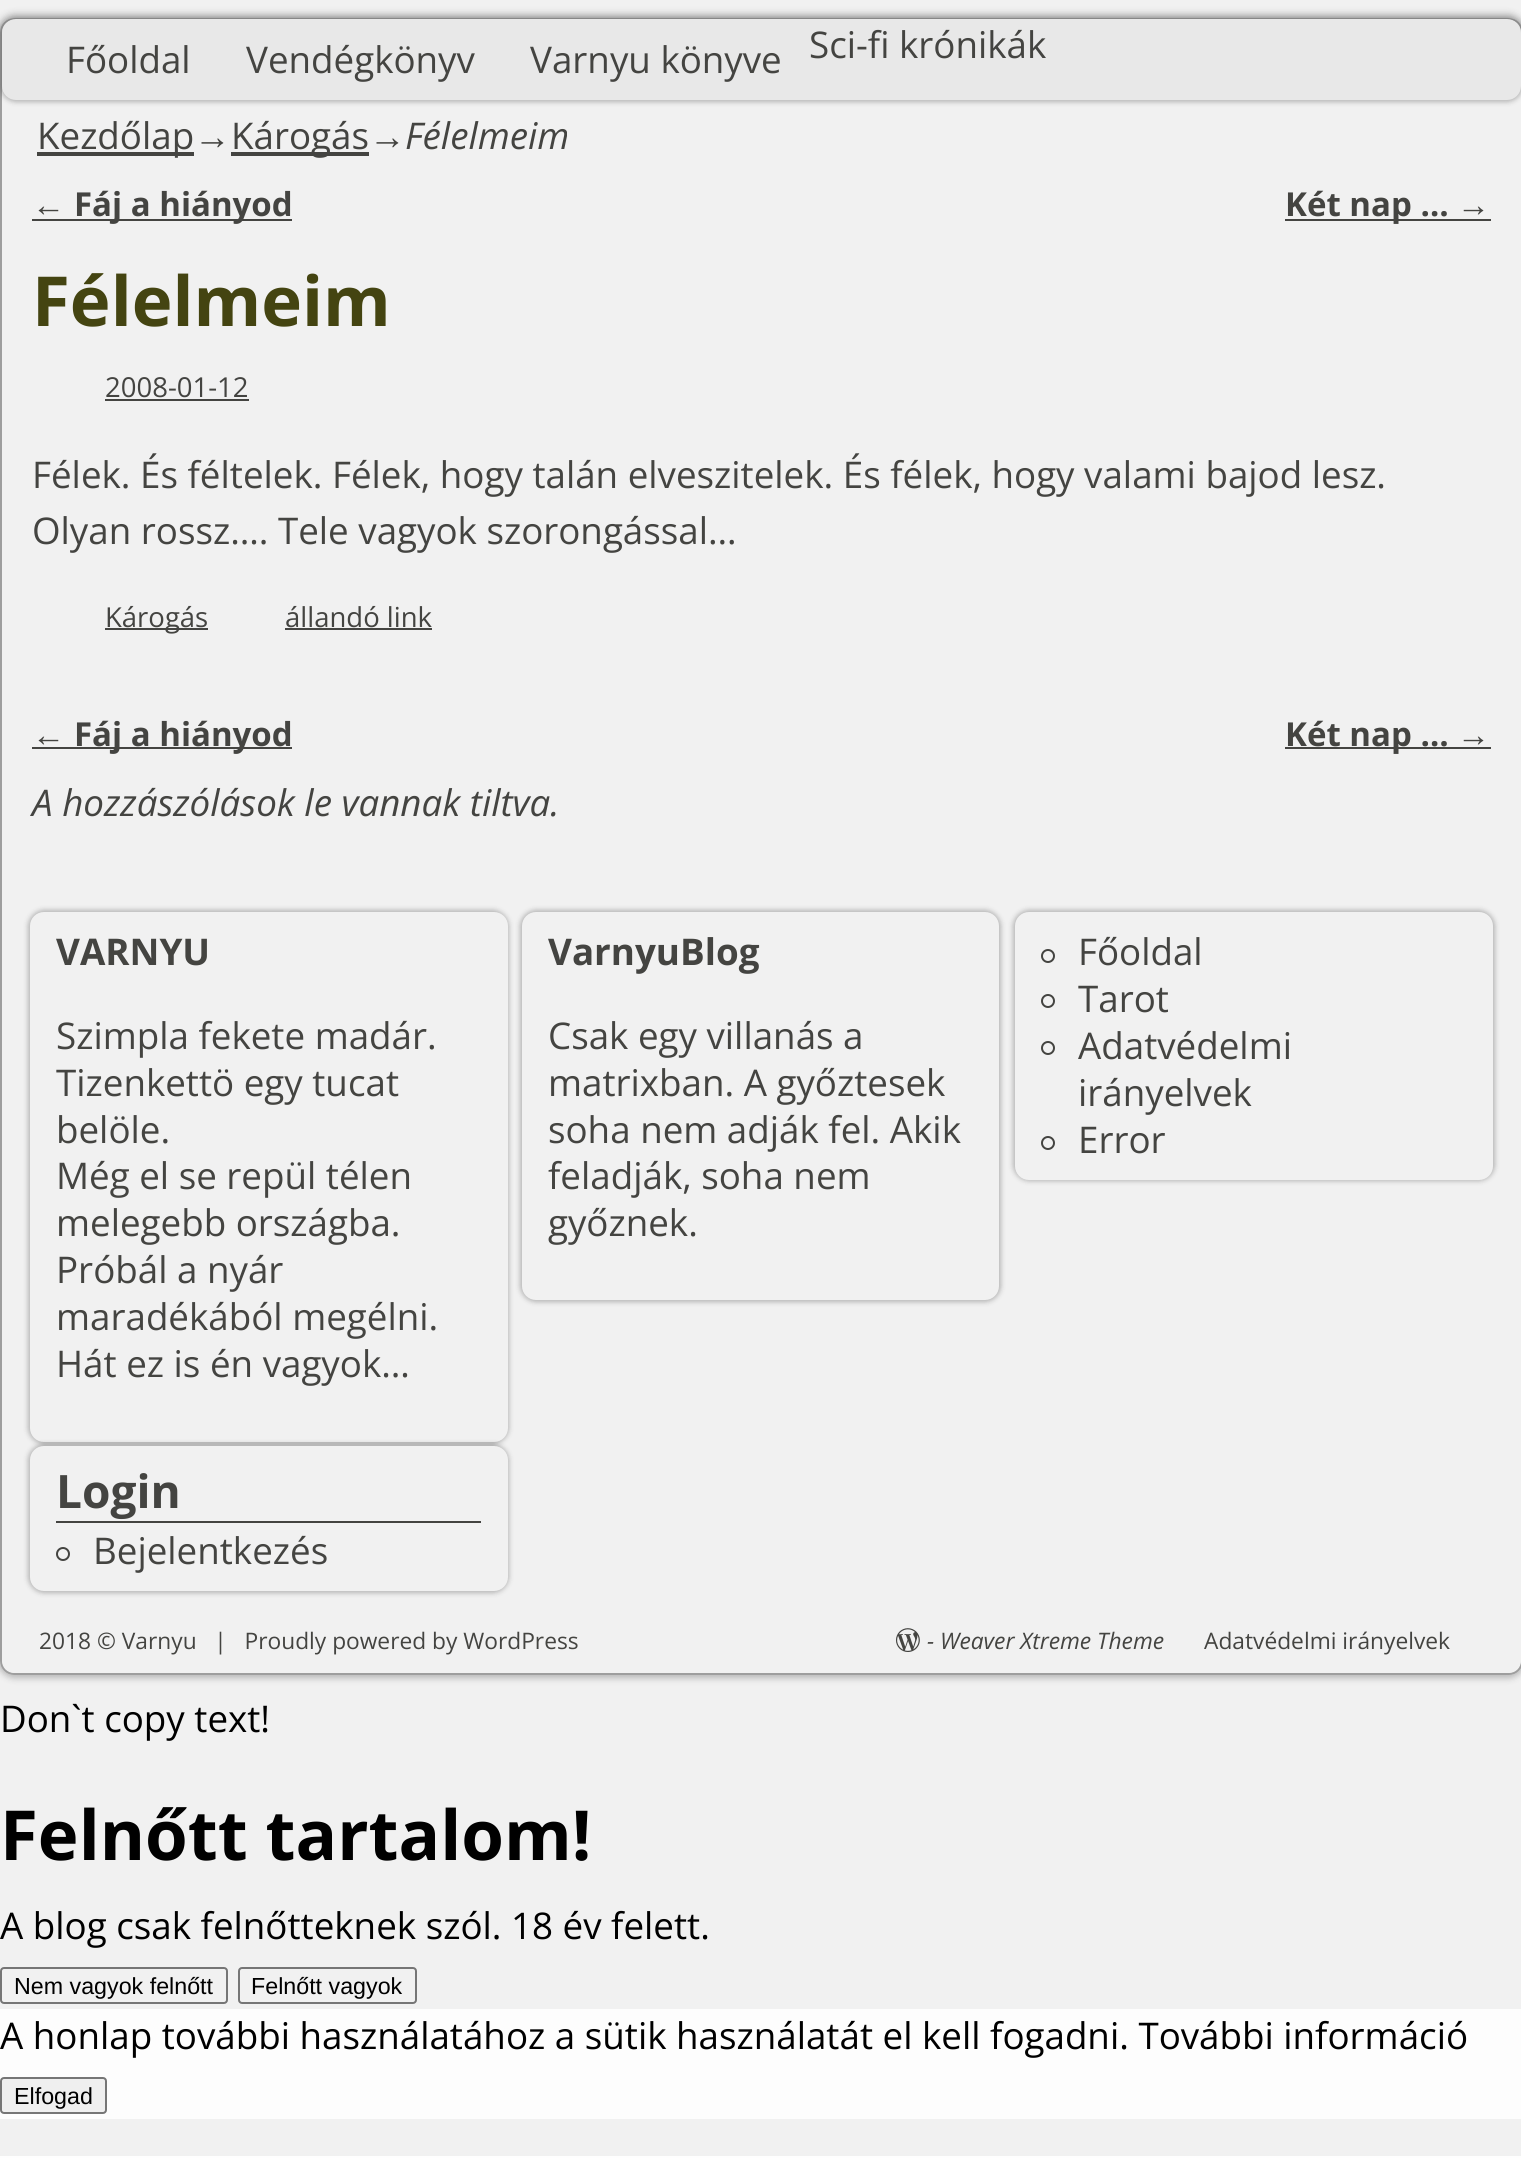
#include <cairo/cairo.h>
#include <math.h>
#include <stddef.h>

typedef struct { double x, y; const char *s; } line_t;
typedef struct { double x, y, w, h; unsigned color; } box_t;
static cairo_t *cr;

static void rgb(unsigned color)
{
	cairo_set_source_rgb(cr, (color >> 16) / 255.0, (color >> 8 & 255) / 255.0, (color & 255) / 255.0);
}

static void rrect(double x, double y, double w, double h, double r)
{
	cairo_new_sub_path(cr);
	cairo_arc(cr, x + w - r, y + h - r, r, 0, M_PI / 2);
	cairo_arc(cr, x + r, y + h - r, r, M_PI / 2, M_PI);
	cairo_arc(cr, x + r, y + r, r, M_PI, 1.5 * M_PI);
	cairo_arc(cr, x + w - r, y + r, r, 1.5 * M_PI, 2 * M_PI);
	cairo_close_path(cr);
}

static void soft_shadow(double x, double y, double w, double h, double r, double blur, double alpha)
{
	cairo_push_group_with_content(cr, CAIRO_CONTENT_ALPHA);
	cairo_set_operator(cr, CAIRO_OPERATOR_SOURCE);
	for (int i = 15; i >= -15 && fmin(w, h) + blur * i / 3 > 0; i -= 2) {
		double e = blur * i / 6;
		cairo_set_source_rgba(cr, 0, 0, 0, alpha * erfc((i - 1) / 8.5) / 2);
		rrect(x - e, y - e, w + 2 * e, h + 2 * e, fmax(0, fmin(r + e + blur * .6, fmin(w, h) / 2 + e)));
		cairo_fill(cr);
	}
	cairo_pattern_t *soft = cairo_pop_group(cr);
	cairo_mask(cr, soft);
	cairo_pattern_destroy(soft);
}

static void image(const char *path, double x, double y, double w, double h)
{
	cairo_surface_t *image = cairo_image_surface_create_from_png(path);
	cairo_save(cr);
	cairo_set_source_surface(cr, image, x, y);
	cairo_rectangle(cr, x, y, w, h);
	cairo_fill(cr);
	cairo_restore(cr);
	cairo_surface_destroy(image);
}

int main(void) {
	cairo_surface_t *surface = cairo_image_surface_create(CAIRO_FORMAT_RGB24, 1521, 2158);
	cr = cairo_create(surface);
	cairo_font_options_t *options = cairo_font_options_create();
	cairo_font_options_set_hint_metrics(options, CAIRO_HINT_METRICS_OFF);
	cairo_font_options_set_hint_style(options, CAIRO_HINT_STYLE_NONE);
	cairo_set_font_options(cr, options);
	cairo_set_miter_limit(cr, 4);
	rgb(0xf1f1f1);
	cairo_paint(cr);
	rgb(0x000000);
	soft_shadow(-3, 14, 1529, 1664, 18, 3.5, 0.25);
	rgb(0xf1f1f1);
	rrect(0, 18, 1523, 1657, 14);
	cairo_fill(cr);
	rrect(1, 19, 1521, 1655, 13);
	cairo_set_source_rgba(cr, 0.518, 0.518, 0.518, 0.76);
	cairo_stroke(cr);
	rgb(0x000000);
	soft_shadow(0, 18, 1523, 84, 16, 2.5, 0.25);
	rgb(0xe8e8e8);
	rrect(2, 19, 1519, 81, 14);
	cairo_fill(cr);
	{
		static const box_t items[] = {
			{37, 152, 157, 4, 0x444441},
			{231, 152, 138, 4, 0x444441},
			{32, 219, 260, 2, 0x444441},
			{1285, 219, 206, 2, 0x444441},
			{105, 399, 144, 2, 0x444441},
			{105, 628, 103, 2, 0x444441},
			{285, 628, 147, 2, 0x444441},
			{32, 747, 260, 2, 0x444441},
			{1285, 747, 206, 2, 0x444441},
		};
		for (size_t i = 0; i < sizeof items / sizeof *items; i++) {
			rgb(items[i].color);
			cairo_rectangle(cr, items[i].x, items[i].y, items[i].w, items[i].h);
			cairo_fill(cr);
		}
	}
	rgb(0xf1f1f1);
	rrect(2, 882, 1519, 791, 14);
	cairo_fill(cr);
	rgb(0x000000);
	soft_shadow(28, 910, 481, 534, 16, 2.5, 0.25);
	rgb(0xf1f1f1);
	rrect(30, 912, 478, 530, 14);
	cairo_fill(cr);
	rgb(0x000000);
	soft_shadow(520, 910, 481, 392, 16, 2.5, 0.25);
	rgb(0xf1f1f1);
	rrect(522, 912, 477, 388, 14);
	cairo_fill(cr);
	rgb(0x000000);
	soft_shadow(1013, 910, 482, 271, 16, 2.5, 0.25);
	rgb(0xf1f1f1);
	rrect(1015, 912, 478, 268, 14);
	cairo_fill(cr);
	cairo_arc(cr, 1048, 956, 6, 0, 2 * M_PI);
	rgb(0x444441);
	cairo_stroke(cr);
	cairo_arc(cr, 1048, 1001, 6, 0, 2 * M_PI);
	cairo_stroke(cr);
	cairo_arc(cr, 1048, 1048, 6, 0, 2 * M_PI);
	cairo_stroke(cr);
	cairo_arc(cr, 1048, 1143, 6, 0, 2 * M_PI);
	cairo_stroke(cr);
	rgb(0x000000);
	soft_shadow(28, 1444, 481, 149, 16, 2.5, 0.25);
	rgb(0xf1f1f1);
	rrect(30, 1446, 478, 145, 14);
	cairo_fill(cr);
	rgb(0x444441);
	cairo_rectangle(cr, 56, 1521, 425, 2);
	cairo_fill(cr);
	cairo_arc(cr, 63, 1554, 6, 0, 2 * M_PI);
	cairo_stroke(cr);
	image("img/1.png", 896, 1628, 24, 24);
	rrect(1, 1968, 226, 35, 3);
	rgb(0x767676);
	cairo_stroke(cr);
	rrect(239, 1968, 177, 35, 3);
	cairo_stroke(cr);
	rgb(0xfdfdfd);
	cairo_rectangle(cr, 0, 2009, 1521, 110);
	cairo_fill(cr);
	rgb(0xefefef);
	rrect(1, 2078, 105, 35, 3);
	cairo_fill_preserve(cr);
	rgb(0x767676);
	cairo_stroke(cr);
	rgb(0xfefefe);
	cairo_rectangle(cr, 0, 2156, 1521, 2);
	cairo_fill(cr);
	cairo_select_font_face(cr, "Open Sans", CAIRO_FONT_SLANT_NORMAL, CAIRO_FONT_WEIGHT_NORMAL);
	cairo_set_font_size(cr, 36.75);
	rgb(0x444441);
	{
		static const line_t items[] = {
			{66, 73, "Főoldal"},
			{246, 73, "Vendégkönyv"},
			{530, 73, "Varnyu könyve"},
			{809, 58, "Sci-fi krónikák"},
			{37, 149, "Kezdőlap"},
		};
		for (size_t i = 0; i < sizeof items / sizeof *items; i++) {
			cairo_move_to(cr, items[i].x, items[i].y);
			cairo_show_text(cr, items[i].s);
		}
	}
	cairo_select_font_face(cr, "Liberation Sans", CAIRO_FONT_SLANT_NORMAL, CAIRO_FONT_WEIGHT_NORMAL);
	cairo_move_to(cr, 194, 149);
	cairo_show_text(cr, "→");
	cairo_select_font_face(cr, "Open Sans", CAIRO_FONT_SLANT_NORMAL, CAIRO_FONT_WEIGHT_NORMAL);
	cairo_move_to(cr, 231, 149);
	cairo_show_text(cr, "Károgás");
	cairo_select_font_face(cr, "Liberation Sans", CAIRO_FONT_SLANT_NORMAL, CAIRO_FONT_WEIGHT_NORMAL);
	cairo_move_to(cr, 369, 149);
	cairo_show_text(cr, "→");
	cairo_select_font_face(cr, "Open Sans", CAIRO_FONT_SLANT_ITALIC, CAIRO_FONT_WEIGHT_NORMAL);
	cairo_move_to(cr, 405, 149);
	cairo_show_text(cr, "Félelmeim");
	cairo_select_font_face(cr, "Liberation Sans", CAIRO_FONT_SLANT_NORMAL, CAIRO_FONT_WEIGHT_NORMAL);
	cairo_set_font_size(cr, 33);
	cairo_move_to(cr, 32, 216);
	cairo_show_text(cr, "←");
	cairo_select_font_face(cr, "Open Sans", CAIRO_FONT_SLANT_NORMAL, CAIRO_FONT_WEIGHT_BOLD);
	cairo_move_to(cr, 74, 216);
	cairo_show_text(cr, "Fáj a hiányod");
	cairo_move_to(cr, 1285, 216);
	cairo_show_text(cr, "Két nap …");
	cairo_select_font_face(cr, "Liberation Sans", CAIRO_FONT_SLANT_NORMAL, CAIRO_FONT_WEIGHT_NORMAL);
	cairo_move_to(cr, 1457, 216);
	cairo_show_text(cr, "→");
	cairo_select_font_face(cr, "Open Sans", CAIRO_FONT_SLANT_NORMAL, CAIRO_FONT_WEIGHT_BOLD);
	cairo_set_font_size(cr, 69);
	rgb(0x444411);
	cairo_move_to(cr, 32, 326);
	cairo_show_text(cr, "Félelmeim");
	cairo_select_font_face(cr, "Open Sans", CAIRO_FONT_SLANT_NORMAL, CAIRO_FONT_WEIGHT_NORMAL);
	cairo_set_font_size(cr, 27.5);
	rgb(0x444441);
	cairo_move_to(cr, 105, 397);
	cairo_show_text(cr, "2008-01-12");
	cairo_set_font_size(cr, 36.75);
	cairo_move_to(cr, 32, 488);
	cairo_show_text(cr, "Félek. És féltelek. Félek, hogy talán elveszitelek. És félek, hogy valami bajod lesz.");
	cairo_move_to(cr, 32, 544);
	cairo_show_text(cr, "Olyan rossz…. Tele vagyok szorongással…");
	cairo_set_font_size(cr, 27.5);
	cairo_move_to(cr, 105, 627);
	cairo_show_text(cr, "Károgás");
	cairo_move_to(cr, 285, 627);
	cairo_show_text(cr, "állandó link");
	cairo_select_font_face(cr, "Liberation Sans", CAIRO_FONT_SLANT_NORMAL, CAIRO_FONT_WEIGHT_NORMAL);
	cairo_set_font_size(cr, 33);
	cairo_move_to(cr, 32, 746);
	cairo_show_text(cr, "←");
	cairo_select_font_face(cr, "Open Sans", CAIRO_FONT_SLANT_NORMAL, CAIRO_FONT_WEIGHT_BOLD);
	cairo_move_to(cr, 74, 746);
	cairo_show_text(cr, "Fáj a hiányod");
	cairo_move_to(cr, 1285, 746);
	cairo_show_text(cr, "Két nap …");
	cairo_select_font_face(cr, "Liberation Sans", CAIRO_FONT_SLANT_NORMAL, CAIRO_FONT_WEIGHT_NORMAL);
	cairo_move_to(cr, 1457, 746);
	cairo_show_text(cr, "→");
	cairo_select_font_face(cr, "Open Sans", CAIRO_FONT_SLANT_ITALIC, CAIRO_FONT_WEIGHT_NORMAL);
	cairo_set_font_size(cr, 36.75);
	cairo_move_to(cr, 32, 816);
	cairo_show_text(cr, "A hozzászólások le vannak tiltva.");
	cairo_select_font_face(cr, "Open Sans", CAIRO_FONT_SLANT_NORMAL, CAIRO_FONT_WEIGHT_BOLD);
	cairo_move_to(cr, 56, 965);
	cairo_show_text(cr, "VARNYU");
	cairo_select_font_face(cr, "Open Sans", CAIRO_FONT_SLANT_NORMAL, CAIRO_FONT_WEIGHT_NORMAL);
	{
		static const line_t items[] = {
			{56, 1049, "Szimpla fekete madár."},
			{56, 1096, "Tizenkettö egy tucat"},
			{56, 1143, "belöle."},
			{56, 1189, "Még el se repül télen"},
			{56, 1236, "melegebb országba."},
			{56, 1283, "Próbál a nyár"},
			{56, 1330, "maradékából megélni."},
			{56, 1377, "Hát ez is én vagyok…"},
		};
		for (size_t i = 0; i < sizeof items / sizeof *items; i++) {
			cairo_move_to(cr, items[i].x, items[i].y);
			cairo_show_text(cr, items[i].s);
		}
	}
	cairo_select_font_face(cr, "Open Sans", CAIRO_FONT_SLANT_NORMAL, CAIRO_FONT_WEIGHT_BOLD);
	cairo_move_to(cr, 548, 965);
	cairo_show_text(cr, "VarnyuBlog");
	cairo_select_font_face(cr, "Open Sans", CAIRO_FONT_SLANT_NORMAL, CAIRO_FONT_WEIGHT_NORMAL);
	{
		static const line_t items[] = {
			{548, 1049, "Csak egy villanás a"},
			{548, 1096, "matrixban. A győztesek"},
			{548, 1143, "soha nem adják fel. Akik"},
			{548, 1189, "feladják, soha nem"},
			{548, 1236, "győznek."},
			{1078, 965, "Főoldal"},
			{1078, 1012, "Tarot"},
			{1078, 1059, "Adatvédelmi"},
			{1078, 1106, "irányelvek"},
			{1078, 1153, "Error"},
		};
		for (size_t i = 0; i < sizeof items / sizeof *items; i++) {
			cairo_move_to(cr, items[i].x, items[i].y);
			cairo_show_text(cr, items[i].s);
		}
	}
	cairo_select_font_face(cr, "Open Sans", CAIRO_FONT_SLANT_NORMAL, CAIRO_FONT_WEIGHT_BOLD);
	cairo_set_font_size(cr, 46);
	cairo_move_to(cr, 56, 1508);
	cairo_show_text(cr, "Login");
	cairo_select_font_face(cr, "Open Sans", CAIRO_FONT_SLANT_NORMAL, CAIRO_FONT_WEIGHT_NORMAL);
	cairo_set_font_size(cr, 36.75);
	cairo_move_to(cr, 93, 1564);
	cairo_show_text(cr, "Bejelentkezés");
	cairo_set_font_size(cr, 22.75);
	cairo_move_to(cr, 39, 1649);
	cairo_show_text(cr, "2018 © Varnyu   |   Proudly powered by WordPress");
	cairo_select_font_face(cr, "Open Sans", CAIRO_FONT_SLANT_ITALIC, CAIRO_FONT_WEIGHT_NORMAL);
	cairo_move_to(cr, 927, 1649);
	cairo_show_text(cr, "- Weaver Xtreme Theme");
	cairo_select_font_face(cr, "Open Sans", CAIRO_FONT_SLANT_NORMAL, CAIRO_FONT_WEIGHT_NORMAL);
	cairo_move_to(cr, 1204, 1649);
	cairo_show_text(cr, "Adatvédelmi irányelvek");
	cairo_set_font_size(cr, 36.75);
	rgb(0x000000);
	cairo_move_to(cr, 0, 1732);
	cairo_show_text(cr, "Don`t copy text!");
	cairo_select_font_face(cr, "Open Sans", CAIRO_FONT_SLANT_NORMAL, CAIRO_FONT_WEIGHT_BOLD);
	cairo_set_font_size(cr, 69);
	cairo_move_to(cr, 0, 1860);
	cairo_show_text(cr, "Felnőtt tartalom!");
	cairo_select_font_face(cr, "Open Sans", CAIRO_FONT_SLANT_NORMAL, CAIRO_FONT_WEIGHT_NORMAL);
	cairo_set_font_size(cr, 36.75);
	cairo_move_to(cr, 0, 1939);
	cairo_show_text(cr, "A blog csak felnőtteknek szól. 18 év felett.");
	cairo_select_font_face(cr, "Liberation Sans", CAIRO_FONT_SLANT_NORMAL, CAIRO_FONT_WEIGHT_NORMAL);
	cairo_set_font_size(cr, 23.25);
	cairo_move_to(cr, 14, 1994);
	cairo_show_text(cr, "Nem vagyok felnőtt");
	cairo_move_to(cr, 251, 1994);
	cairo_show_text(cr, "Felnőtt vagyok");
	cairo_select_font_face(cr, "Open Sans", CAIRO_FONT_SLANT_NORMAL, CAIRO_FONT_WEIGHT_NORMAL);
	cairo_set_font_size(cr, 36.75);
	cairo_move_to(cr, 0, 2049);
	cairo_show_text(cr, "A honlap további használatához a sütik használatát el kell fogadni. További információ");
	cairo_select_font_face(cr, "Liberation Sans", CAIRO_FONT_SLANT_NORMAL, CAIRO_FONT_WEIGHT_NORMAL);
	cairo_set_font_size(cr, 23.25);
	cairo_move_to(cr, 14, 2104);
	cairo_show_text(cr, "Elfogad");
	cairo_surface_write_to_png(surface, "page.png");
	cairo_font_options_destroy(options);
	cairo_destroy(cr);
	cairo_surface_destroy(surface);
	return 0;
}
